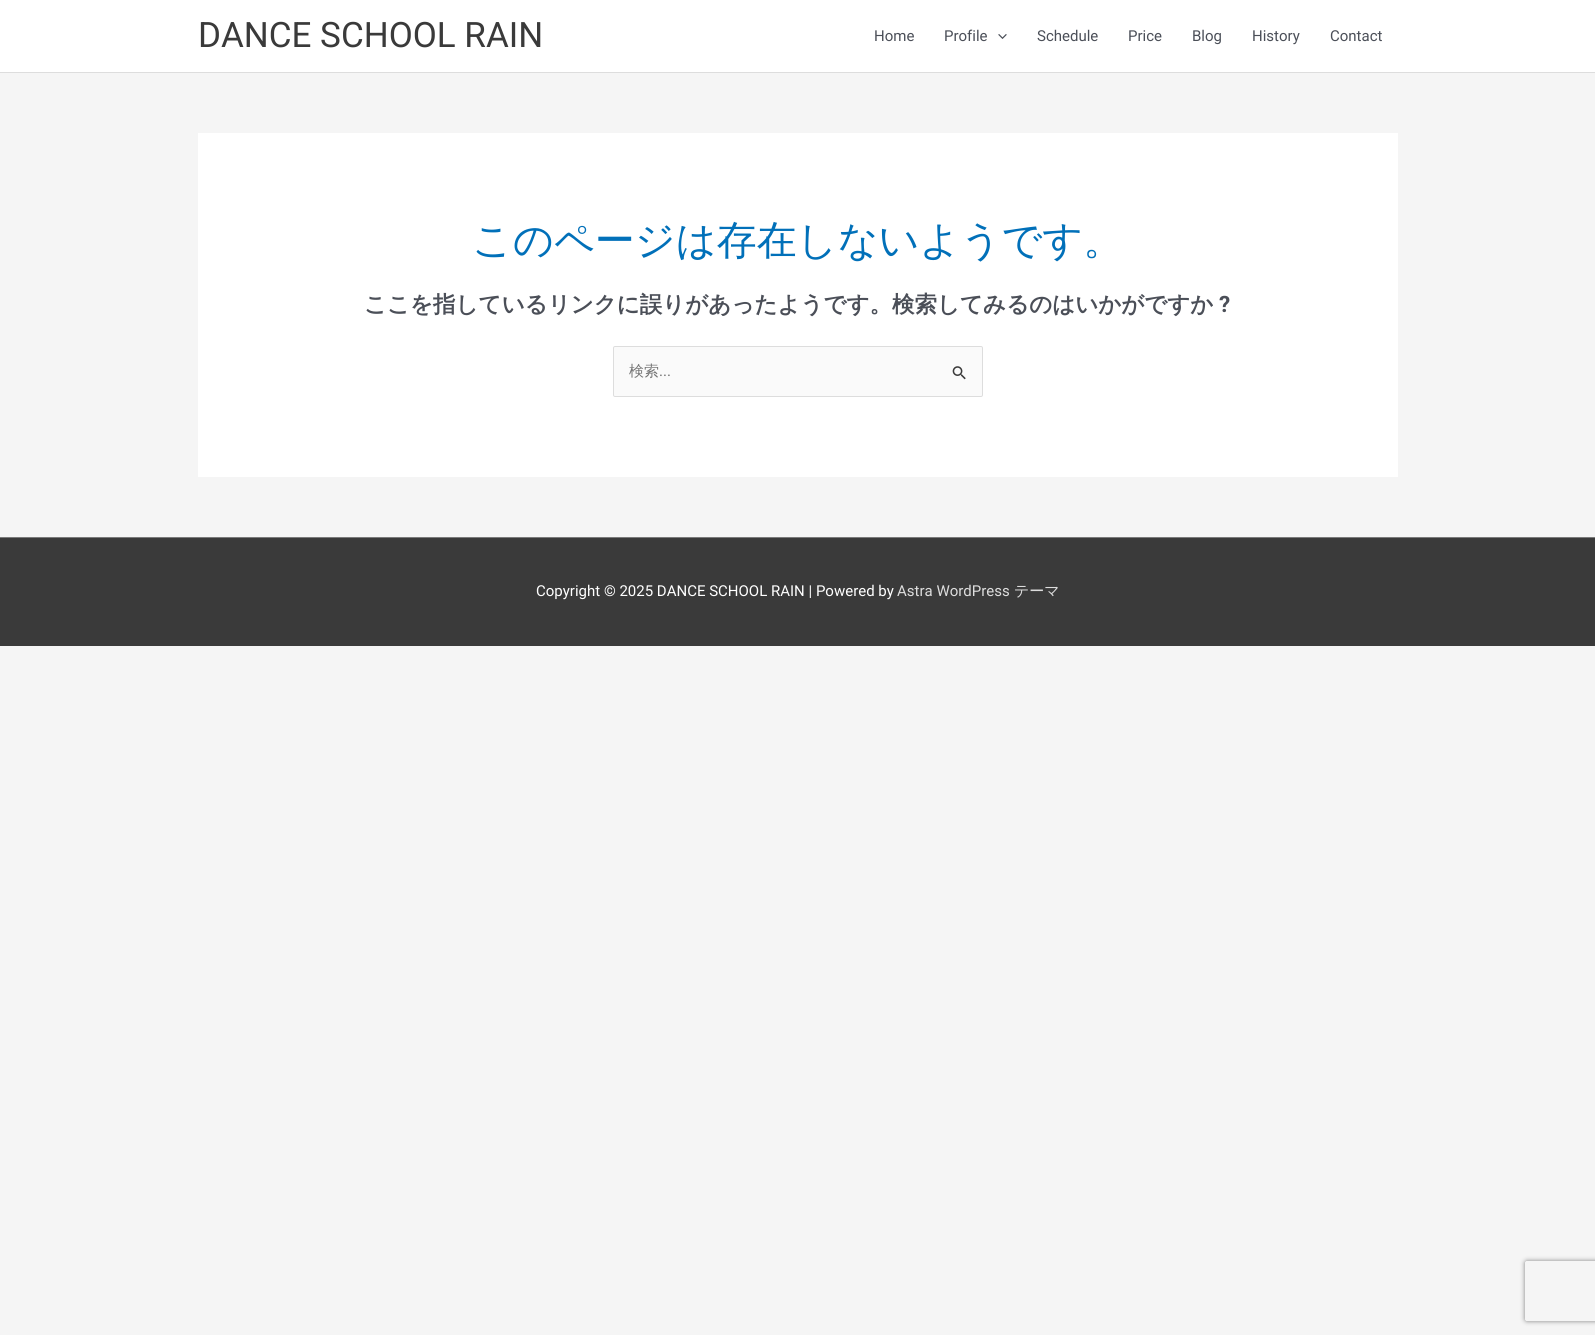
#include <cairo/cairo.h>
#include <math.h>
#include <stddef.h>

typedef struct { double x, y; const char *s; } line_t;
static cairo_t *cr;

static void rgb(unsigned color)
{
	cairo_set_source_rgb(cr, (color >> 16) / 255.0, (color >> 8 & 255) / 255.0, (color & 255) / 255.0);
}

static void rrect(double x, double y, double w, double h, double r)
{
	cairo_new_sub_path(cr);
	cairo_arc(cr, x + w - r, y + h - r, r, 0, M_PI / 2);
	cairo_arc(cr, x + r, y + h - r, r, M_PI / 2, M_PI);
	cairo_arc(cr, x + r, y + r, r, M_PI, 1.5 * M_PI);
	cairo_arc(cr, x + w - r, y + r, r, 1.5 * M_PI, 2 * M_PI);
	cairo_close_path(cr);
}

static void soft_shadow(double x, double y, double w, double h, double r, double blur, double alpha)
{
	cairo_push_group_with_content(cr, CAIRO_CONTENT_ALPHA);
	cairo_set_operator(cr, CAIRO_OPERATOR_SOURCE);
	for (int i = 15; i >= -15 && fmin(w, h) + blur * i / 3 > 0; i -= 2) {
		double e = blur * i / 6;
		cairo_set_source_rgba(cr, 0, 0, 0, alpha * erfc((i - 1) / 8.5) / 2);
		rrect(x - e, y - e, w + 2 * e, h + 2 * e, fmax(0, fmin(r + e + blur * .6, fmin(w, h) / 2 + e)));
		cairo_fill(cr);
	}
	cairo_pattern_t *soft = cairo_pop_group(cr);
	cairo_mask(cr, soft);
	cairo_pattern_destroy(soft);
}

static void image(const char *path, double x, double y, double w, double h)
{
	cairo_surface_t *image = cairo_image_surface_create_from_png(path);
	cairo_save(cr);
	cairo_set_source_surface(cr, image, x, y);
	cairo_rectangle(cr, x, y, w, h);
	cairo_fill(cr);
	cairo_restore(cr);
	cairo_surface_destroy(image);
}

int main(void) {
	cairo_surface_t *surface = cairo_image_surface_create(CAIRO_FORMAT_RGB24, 1595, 1335);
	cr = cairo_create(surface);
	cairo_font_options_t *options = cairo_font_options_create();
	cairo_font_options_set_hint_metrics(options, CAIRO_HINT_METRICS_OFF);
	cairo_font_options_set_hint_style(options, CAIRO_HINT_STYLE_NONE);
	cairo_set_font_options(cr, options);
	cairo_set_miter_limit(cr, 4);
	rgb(0xf5f5f5);
	cairo_paint(cr);
	rgb(0xffffff);
	cairo_rectangle(cr, 0, 0, 1595, 72);
	cairo_fill(cr);
	rgb(0xdddddd);
	cairo_rectangle(cr, 0, 72, 1595, 1);
	cairo_fill(cr);
	image("img/1.png", 998, 34, 9, 5);
	rgb(0xffffff);
	cairo_rectangle(cr, 198, 133, 1200, 344);
	cairo_fill(cr);
	rgb(0xfafafa);
	rrect(613.5, 346.5, 369, 50, 1.5);
	cairo_fill_preserve(cr);
	rgb(0xdddddd);
	cairo_set_line_width(cr, 1);
	cairo_stroke(cr);
	image("img/2.png", 952, 366, 14, 14);
	rgb(0x7a7a7a);
	cairo_rectangle(cr, 0, 537, 1595, 1);
	cairo_fill(cr);
	rgb(0x3a3a3a);
	cairo_rectangle(cr, 0, 538, 1595, 108);
	cairo_fill(cr);
	cairo_save(cr);
	cairo_set_fill_rule(cr, CAIRO_FILL_RULE_EVEN_ODD);
	cairo_new_path(cr);
	cairo_move_to(cr, 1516, 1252);
	cairo_line_to(cr, 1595, 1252);
	cairo_line_to(cr, 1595, 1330);
	cairo_line_to(cr, 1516, 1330);
	cairo_close_path(cr);
	cairo_move_to(cr, 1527, 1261);
	cairo_line_to(cr, 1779, 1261);
	cairo_curve_to(cr, 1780, 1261, 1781, 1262, 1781, 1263);
	cairo_line_to(cr, 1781, 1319);
	cairo_curve_to(cr, 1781, 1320, 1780, 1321, 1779, 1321);
	cairo_line_to(cr, 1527, 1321);
	cairo_curve_to(cr, 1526, 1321, 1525, 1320, 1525, 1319);
	cairo_line_to(cr, 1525, 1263);
	cairo_curve_to(cr, 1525, 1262, 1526, 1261, 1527, 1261);
	cairo_close_path(cr);
	cairo_clip(cr);
	rgb(0x808080);
	soft_shadow(1525, 1261, 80, 60, 2, 2.5, 1);
	cairo_restore(cr);
	cairo_select_font_face(cr, "Roboto", CAIRO_FONT_SLANT_NORMAL, CAIRO_FONT_WEIGHT_NORMAL);
	cairo_set_font_size(cr, 35);
	cairo_move_to(cr, 198, 47);
	cairo_show_text(cr, "DANCE SCHOOL RAIN");
	cairo_set_font_size(cr, 15);
	rgb(0x4b4f58);
	{
		static const line_t items[] = {
			{874, 41, "Home"},
			{944, 41, "Profile"},
			{1037, 41, "Schedule"},
			{1128, 41, "Price"},
			{1192, 41, "Blog"},
			{1252, 41, "History"},
			{1330, 41, "Contact"},
		};
		for (size_t i = 0; i < sizeof items / sizeof *items; i++) {
			cairo_move_to(cr, items[i].x, items[i].y);
			cairo_show_text(cr, items[i].s);
		}
	}
	cairo_select_font_face(cr, "WenQuanYi Zen Hei Medium", CAIRO_FONT_SLANT_NORMAL, CAIRO_FONT_WEIGHT_NORMAL);
	cairo_set_font_size(cr, 40);
	rgb(0x0170b9);
	cairo_move_to(cr, 472, 254);
	cairo_show_text(cr, "このページは存在しないようです。");
	cairo_select_font_face(cr, "WenQuanYi Zen Hei", CAIRO_FONT_SLANT_NORMAL, CAIRO_FONT_WEIGHT_BOLD);
	cairo_set_font_size(cr, 22.5);
	rgb(0x4b4f58);
	cairo_move_to(cr, 364, 312);
	cairo_show_text(cr, "ここを指しているリンクに誤りがあったようです。検索してみるのはいかがですか");
	cairo_select_font_face(cr, "Roboto", CAIRO_FONT_SLANT_NORMAL, CAIRO_FONT_WEIGHT_BOLD);
	cairo_move_to(cr, 1219, 312);
	cairo_show_text(cr, "?");
	cairo_select_font_face(cr, "WenQuanYi Zen Hei Medium", CAIRO_FONT_SLANT_NORMAL, CAIRO_FONT_WEIGHT_NORMAL);
	cairo_set_font_size(cr, 15);
	rgb(0x757575);
	cairo_move_to(cr, 629, 376);
	cairo_show_text(cr, "検索");
	cairo_select_font_face(cr, "Roboto", CAIRO_FONT_SLANT_NORMAL, CAIRO_FONT_WEIGHT_NORMAL);
	cairo_move_to(cr, 659, 376);
	cairo_show_text(cr, "...");
	rgb(0xffffff);
	cairo_move_to(cr, 536, 596);
	cairo_show_text(cr, "Copyright © 2025 DANCE SCHOOL RAIN | Powered by");
	rgb(0xdddddd);
	cairo_move_to(cr, 897, 596);
	cairo_show_text(cr, "Astra WordPress");
	cairo_select_font_face(cr, "WenQuanYi Zen Hei Medium", CAIRO_FONT_SLANT_NORMAL, CAIRO_FONT_WEIGHT_NORMAL);
	cairo_move_to(cr, 1014, 596);
	cairo_show_text(cr, "テーマ");
	cairo_surface_write_to_png(surface, "page.png");
	cairo_font_options_destroy(options);
	cairo_destroy(cr);
	cairo_surface_destroy(surface);
	return 0;
}
